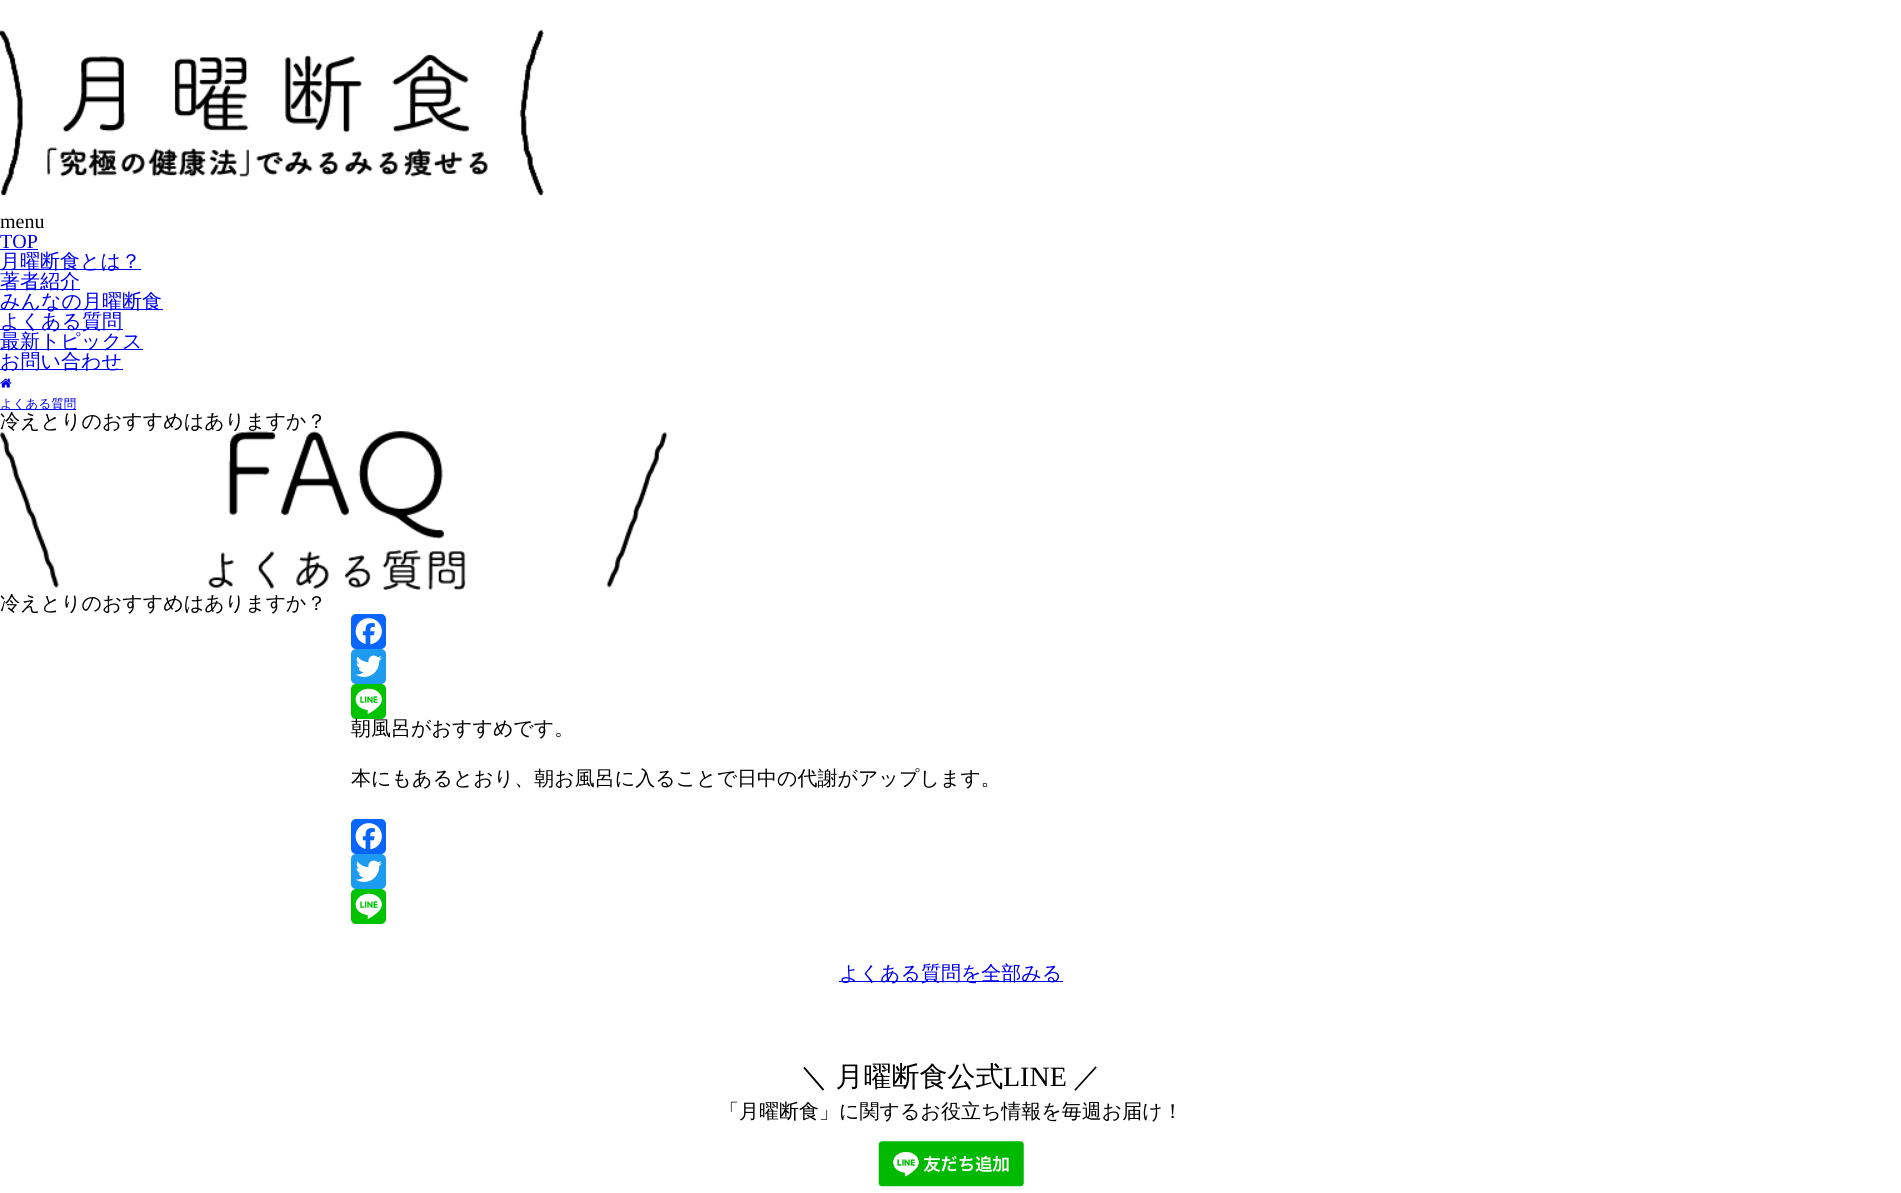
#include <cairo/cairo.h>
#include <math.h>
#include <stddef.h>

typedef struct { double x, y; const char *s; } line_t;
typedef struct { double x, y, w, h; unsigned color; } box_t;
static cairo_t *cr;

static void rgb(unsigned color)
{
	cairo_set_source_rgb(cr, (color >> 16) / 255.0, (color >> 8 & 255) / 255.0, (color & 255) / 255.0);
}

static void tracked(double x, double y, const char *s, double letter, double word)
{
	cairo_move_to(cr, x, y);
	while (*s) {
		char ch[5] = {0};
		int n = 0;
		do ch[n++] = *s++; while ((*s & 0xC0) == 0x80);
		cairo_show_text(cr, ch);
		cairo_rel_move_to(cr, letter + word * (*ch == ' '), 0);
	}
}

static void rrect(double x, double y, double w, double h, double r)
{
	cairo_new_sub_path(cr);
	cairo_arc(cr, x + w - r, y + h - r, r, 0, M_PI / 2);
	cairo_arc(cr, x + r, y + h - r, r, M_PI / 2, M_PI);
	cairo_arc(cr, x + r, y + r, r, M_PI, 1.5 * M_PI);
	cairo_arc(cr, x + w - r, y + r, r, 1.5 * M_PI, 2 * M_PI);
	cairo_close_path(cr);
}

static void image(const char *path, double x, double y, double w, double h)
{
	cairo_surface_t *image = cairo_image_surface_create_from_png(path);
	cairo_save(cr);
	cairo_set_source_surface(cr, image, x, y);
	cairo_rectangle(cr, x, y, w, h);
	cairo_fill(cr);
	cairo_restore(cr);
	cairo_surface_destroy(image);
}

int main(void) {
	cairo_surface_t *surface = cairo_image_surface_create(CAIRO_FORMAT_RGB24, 1901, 1193);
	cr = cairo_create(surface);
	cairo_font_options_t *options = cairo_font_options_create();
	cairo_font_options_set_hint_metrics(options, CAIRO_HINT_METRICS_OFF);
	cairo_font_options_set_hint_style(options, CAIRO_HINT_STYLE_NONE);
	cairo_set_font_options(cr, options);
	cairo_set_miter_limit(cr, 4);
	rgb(0xffffff);
	cairo_paint(cr);
	image("img/1.png", 0, 29, 544, 167);
	{
		static const box_t items[] = {
			{0, 249, 38, 1, 0x0000ee},
			{0, 269, 141, 1, 0x0000ee},
			{0, 289, 80, 1, 0x0000ee},
			{0, 309, 163, 1, 0x0000ee},
			{0, 329, 123, 1, 0x0000ee},
			{0, 349, 143, 1, 0x0000ee},
			{0, 369, 123, 1, 0x0000ee},
		};
		for (size_t i = 0; i < sizeof items / sizeof *items; i++) {
			rgb(items[i].color);
			cairo_rectangle(cr, items[i].x, items[i].y, items[i].w, items[i].h);
			cairo_fill(cr);
		}
	}
	image("img/2.png", 0, 378, 12, 10);
	cairo_rectangle(cr, 0, 409, 76, 1);
	cairo_fill(cr);
	image("img/3.png", 0, 431, 668, 159);
	rgb(0x0866ff);
	rrect(351, 614, 35, 35, 5);
	cairo_fill(cr);
	image("img/4.png", 355, 618, 27, 27);
	rgb(0x1d9bf0);
	rrect(351, 649, 35, 35, 5);
	cairo_fill(cr);
	image("img/5.png", 355, 655, 27, 22);
	rgb(0x00c300);
	rrect(351, 684, 35, 35, 5);
	cairo_fill(cr);
	image("img/6.png", 355, 688, 27, 26);
	rgb(0x0866ff);
	rrect(351, 819, 35, 35, 5);
	cairo_fill(cr);
	image("img/4.png", 355, 823, 27, 27);
	rgb(0x1d9bf0);
	rrect(351, 854, 35, 35, 5);
	cairo_fill(cr);
	image("img/5.png", 355, 860, 27, 22);
	rgb(0x00c300);
	rrect(351, 889, 35, 35, 5);
	cairo_fill(cr);
	image("img/6.png", 355, 893, 27, 26);
	rgb(0x0000ee);
	cairo_rectangle(cr, 839, 981, 224, 1);
	cairo_fill(cr);
	image("img/7.png", 878, 1141, 146, 46);
	cairo_select_font_face(cr, "Liberation Serif", CAIRO_FONT_SLANT_NORMAL, CAIRO_FONT_WEIGHT_NORMAL);
	cairo_set_font_size(cr, 20);
	rgb(0x000000);
	cairo_move_to(cr, 0, 228);
	cairo_show_text(cr, "menu");
	rgb(0x0000ee);
	cairo_move_to(cr, 0, 248);
	cairo_show_text(cr, "TOP");
	cairo_select_font_face(cr, "WenQuanYi Zen Hei Medium", CAIRO_FONT_SLANT_NORMAL, CAIRO_FONT_WEIGHT_NORMAL);
	{
		static const line_t items[] = {
			{0, 268, "月曜断食とは？"},
			{0, 288, "著者紹介"},
			{0, 308, "みんなの月曜断食"},
			{0, 328, "よくある質問"},
			{0, 348, "最新トピックス"},
			{0, 368, "お問い合わせ"},
		};
		for (size_t i = 0; i < sizeof items / sizeof *items; i++) {
			cairo_move_to(cr, items[i].x, items[i].y);
			cairo_show_text(cr, items[i].s);
		}
	}
	cairo_set_font_size(cr, 12.5);
	cairo_move_to(cr, 0, 408);
	cairo_show_text(cr, "よくある質問");
	cairo_save(cr);
	cairo_rectangle(cr, 0, 371, 1901, 60);
	cairo_clip(cr);
	cairo_set_font_size(cr, 20);
	rgb(0x000000);
	cairo_move_to(cr, 0, 428);
	cairo_show_text(cr, "冷えとりのおすすめはありますか？");
	cairo_restore(cr);
	cairo_set_font_size(cr, 20);
	rgb(0x000000);
	{
		static const line_t items[] = {
			{0, 610, "冷えとりのおすすめはありますか？"},
			{351, 735, "朝風呂がおすすめです。"},
			{351, 785, "本にもあるとおり、朝お風呂に入ることで日中の代謝がアップします。"},
		};
		for (size_t i = 0; i < sizeof items / sizeof *items; i++) {
			cairo_move_to(cr, items[i].x, items[i].y);
			cairo_show_text(cr, items[i].s);
		}
	}
	rgb(0x0000ee);
	cairo_move_to(cr, 839, 980);
	cairo_show_text(cr, "よくある質問を全部みる");
	cairo_set_font_size(cr, 28);
	rgb(0x000000);
	tracked(800, 1086, "＼ 月曜断食公式", 0, -1);
	cairo_select_font_face(cr, "Liberation Serif", CAIRO_FONT_SLANT_NORMAL, CAIRO_FONT_WEIGHT_NORMAL);
	cairo_move_to(cr, 1003, 1086);
	cairo_show_text(cr, "LINE");
	cairo_select_font_face(cr, "WenQuanYi Zen Hei Medium", CAIRO_FONT_SLANT_NORMAL, CAIRO_FONT_WEIGHT_NORMAL);
	cairo_move_to(cr, 1073, 1086);
	cairo_show_text(cr, "／");
	cairo_set_font_size(cr, 20);
	cairo_move_to(cr, 719, 1118);
	cairo_show_text(cr, "「月曜断食」に関するお役立ち情報を毎週お届け！");
	cairo_surface_write_to_png(surface, "page.png");
	cairo_font_options_destroy(options);
	cairo_destroy(cr);
	cairo_surface_destroy(surface);
	return 0;
}
